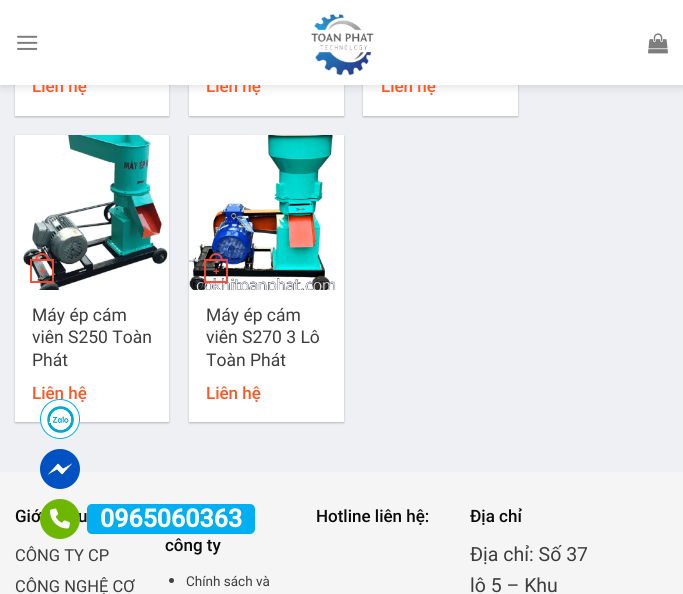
#include <cairo/cairo.h>
#include <math.h>
#include <stddef.h>


static void rounded_rect(cairo_t *cr, double x, double y, double w, double h, double r) {
  cairo_new_sub_path(cr);
  cairo_arc(cr, x + w - r, y + h - r, r, 0, M_PI / 2);
  cairo_arc(cr, x + r, y + h - r, r, M_PI / 2, M_PI);
  cairo_arc(cr, x + r, y + r, r, M_PI, 1.5 * M_PI);
  cairo_arc(cr, x + w - r, y + r, r, 1.5 * M_PI, 2 * M_PI);
  cairo_close_path(cr);
}

static void draw_shadow(cairo_t *cr, double x, double y, double w, double h, double r, double blur, double alpha) {
  cairo_push_group_with_content(cr, CAIRO_CONTENT_ALPHA);
  cairo_set_operator(cr, CAIRO_OPERATOR_SOURCE);
  for (int i = 15; i >= -15 && fmin(w, h) + blur * i / 3 > 0; i -= 2) {
    double e = blur * i / 6;
    cairo_set_source_rgba(cr, 0, 0, 0, alpha * erfc((i - 1) / 8.5) / 2);
    rounded_rect(cr, x - e, y - e, w + 2 * e, h + 2 * e, fmax(0, fmin(r + e + blur * .6, fmin(w, h) / 2 + e)));
    cairo_fill(cr);
  }
  cairo_pattern_t *soft = cairo_pop_group(cr);
  cairo_mask(cr, soft);
  cairo_pattern_destroy(soft);
}

static void draw_image(cairo_t *cr, const char *path, double x, double y, double w, double h) {
  cairo_surface_t *image = cairo_image_surface_create_from_png(path);
  cairo_save(cr);
  cairo_set_source_surface(cr, image, x, y);
  cairo_rectangle(cr, x, y, w, h);
  cairo_fill(cr);
  cairo_restore(cr);
  cairo_surface_destroy(image);
}

static void draw(cairo_t *cr) {
  cairo_set_source_rgb(cr, 239 / 255.0, 240 / 255.0, 243 / 255.0);
  cairo_paint(cr);
  cairo_set_source_rgb(cr, 0, 0, 0);
  draw_shadow(cr, 15, -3, 154, 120, 0, 1, 0.24);
  cairo_set_source_rgb(cr, 1, 1, 1);
  cairo_rectangle(cr, 15, 85, 154, 31);
  cairo_fill(cr);
  cairo_set_source_rgb(cr, 0, 0, 0);
  draw_shadow(cr, 189, -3, 155, 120, 0, 1, 0.24);
  cairo_set_source_rgb(cr, 1, 1, 1);
  cairo_rectangle(cr, 189, 85, 155, 31);
  cairo_fill(cr);
  cairo_set_source_rgb(cr, 0, 0, 0);
  draw_shadow(cr, 363, -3, 155, 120, 0, 1, 0.24);
  cairo_set_source_rgb(cr, 1, 1, 1);
  cairo_rectangle(cr, 363, 85, 155, 31);
  cairo_fill(cr);
  cairo_set_source_rgb(cr, 0, 0, 0);
  draw_shadow(cr, 1, 1, 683, 85, 0, 5, 0.15);
  draw_shadow(cr, 15, 136, 154, 287, 0, 1, 0.24);
  cairo_set_source_rgb(cr, 1, 1, 1);
  cairo_rectangle(cr, 15, 135, 154, 287);
  cairo_fill(cr);
  draw_image(cr, "images/4.png", 22, 135, 146, 155);
  cairo_rectangle(cr, 31, 260, 22, 22);
  cairo_set_source_rgba(cr, 248 / 255.0, 73 / 255.0, 47 / 255.0, 0.95);
  cairo_stroke(cr);
  cairo_set_fill_rule(cr, CAIRO_FILL_RULE_EVEN_ODD);
  cairo_new_path(cr);
  cairo_move_to(cr, 42, 253);
  cairo_curve_to(cr, 46.5, 253, 49, 257, 49, 261);
  cairo_line_to(cr, 35, 261);
  cairo_curve_to(cr, 35, 257, 37.5, 253, 42, 253);
  cairo_close_path(cr);
  cairo_move_to(cr, 42, 255);
  cairo_curve_to(cr, 45.5, 255, 47, 258, 47, 261);
  cairo_line_to(cr, 37, 261);
  cairo_curve_to(cr, 37, 258, 38.5, 255, 42, 255);
  cairo_close_path(cr);
  cairo_fill(cr);
  cairo_set_source_rgb(cr, 0, 0, 0);
  draw_shadow(cr, 189, 136, 155, 287, 0, 1, 0.24);
  cairo_set_source_rgb(cr, 1, 1, 1);
  cairo_rectangle(cr, 189, 135, 155, 287);
  cairo_fill(cr);
  draw_image(cr, "images/5.png", 189, 135, 147, 155);
  cairo_rectangle(cr, 205, 260, 22, 22);
  cairo_set_source_rgba(cr, 248 / 255.0, 73 / 255.0, 47 / 255.0, 0.95);
  cairo_stroke(cr);
  cairo_new_path(cr);
  cairo_move_to(cr, 216, 253);
  cairo_curve_to(cr, 220.5, 253, 223, 257, 223, 261);
  cairo_line_to(cr, 209, 261);
  cairo_curve_to(cr, 209, 257, 211.5, 253, 216, 253);
  cairo_close_path(cr);
  cairo_move_to(cr, 216, 255);
  cairo_curve_to(cr, 219.5, 255, 221, 258, 221, 261);
  cairo_line_to(cr, 211, 261);
  cairo_curve_to(cr, 211, 258, 212.5, 255, 216, 255);
  cairo_close_path(cr);
  cairo_fill(cr);
  cairo_set_source_rgb(cr, 245 / 255.0, 245 / 255.0, 245 / 255.0);
  cairo_rectangle(cr, 0, 472, 683, 122);
  cairo_fill(cr);
  cairo_set_source_rgb(cr, 66 / 255.0, 66 / 255.0, 66 / 255.0);
  cairo_arc(cr, 171.5, 580.5, 2.5, 0, 2 * M_PI);
  cairo_fill(cr);
  cairo_set_source_rgb(cr, 0, 82 / 255.0, 194 / 255.0);
  cairo_arc(cr, 60, 469, 20, 0, 2 * M_PI);
  cairo_fill(cr);
  draw_image(cr, "images/7.png", 47, 463, 26, 12);
  cairo_set_source_rgb(cr, 0, 175 / 255.0, 242 / 255.0);
  rounded_rect(cr, 87, 504, 168, 30, 5);
  cairo_fill(cr);
  cairo_select_font_face(cr, "Roboto Medium", CAIRO_FONT_SLANT_NORMAL, CAIRO_FONT_WEIGHT_NORMAL);
  cairo_set_font_size(cr, 17);
  cairo_set_source_rgb(cr, 1, 86 / 255.0, 34 / 255.0);
  cairo_move_to(cr, 32, 92);
  cairo_show_text(cr, "Liên hệ");
  cairo_move_to(cr, 206, 92);
  cairo_show_text(cr, "Liên hệ");
  cairo_move_to(cr, 381, 92);
  cairo_show_text(cr, "Liên hệ");
  cairo_set_source_rgb(cr, 1, 1, 1);
  cairo_rectangle(cr, 0, 0, 683, 85);
  cairo_fill(cr);
  draw_image(cr, "images/3.png", 648, 33, 20, 21);
  draw_image(cr, "images/1.png", 17, 35, 21, 15);
  draw_image(cr, "images/2.png", 311, 14, 63, 62);
  cairo_select_font_face(cr, "Liberation Sans", CAIRO_FONT_SLANT_NORMAL, CAIRO_FONT_WEIGHT_BOLD);
  cairo_set_font_size(cr, 11);
  cairo_set_source_rgb(cr, 242 / 255.0, 76 / 255.0, 52 / 255.0);
  cairo_move_to(cr, 39, 275);
  cairo_show_text(cr, "+");
  cairo_select_font_face(cr, "Roboto", CAIRO_FONT_SLANT_NORMAL, CAIRO_FONT_WEIGHT_NORMAL);
  cairo_set_font_size(cr, 17.5);
  cairo_set_source_rgb(cr, 61 / 255.0, 61 / 255.0, 61 / 255.0);
  cairo_move_to(cr, 32, 321);
  cairo_show_text(cr, "Máy ép cám");
  cairo_move_to(cr, 32, 343);
  cairo_show_text(cr, "viên S250 Toàn");
  cairo_move_to(cr, 32, 366);
  cairo_show_text(cr, "Phát");
  cairo_select_font_face(cr, "Roboto Medium", CAIRO_FONT_SLANT_NORMAL, CAIRO_FONT_WEIGHT_NORMAL);
  cairo_set_font_size(cr, 17);
  cairo_set_source_rgb(cr, 1, 86 / 255.0, 34 / 255.0);
  cairo_move_to(cr, 32, 399);
  cairo_show_text(cr, "Liên hệ");
  cairo_select_font_face(cr, "Liberation Sans", CAIRO_FONT_SLANT_NORMAL, CAIRO_FONT_WEIGHT_BOLD);
  cairo_set_font_size(cr, 11);
  cairo_set_source_rgb(cr, 237 / 255.0, 71 / 255.0, 46 / 255.0);
  cairo_move_to(cr, 213, 275);
  cairo_show_text(cr, "+");
  cairo_select_font_face(cr, "Roboto", CAIRO_FONT_SLANT_NORMAL, CAIRO_FONT_WEIGHT_NORMAL);
  cairo_set_font_size(cr, 17.5);
  cairo_set_source_rgb(cr, 61 / 255.0, 61 / 255.0, 61 / 255.0);
  cairo_move_to(cr, 206, 321);
  cairo_show_text(cr, "Máy ép cám");
  cairo_move_to(cr, 206, 343);
  cairo_show_text(cr, "viên S270 3 Lô");
  cairo_move_to(cr, 206, 366);
  cairo_show_text(cr, "Toàn Phát");
  cairo_select_font_face(cr, "Roboto Medium", CAIRO_FONT_SLANT_NORMAL, CAIRO_FONT_WEIGHT_NORMAL);
  cairo_set_font_size(cr, 17);
  cairo_set_source_rgb(cr, 1, 86 / 255.0, 34 / 255.0);
  cairo_move_to(cr, 206, 399);
  cairo_show_text(cr, "Liên hệ");
  cairo_set_source_rgb(cr, 10 / 255.0, 10 / 255.0, 10 / 255.0);
  cairo_move_to(cr, 15, 522);
  cairo_show_text(cr, "Giớ");
  cairo_move_to(cr, 78, 522);
  cairo_show_text(cr, "u");
  cairo_select_font_face(cr, "Roboto", CAIRO_FONT_SLANT_NORMAL, CAIRO_FONT_WEIGHT_NORMAL);
  cairo_set_font_size(cr, 16.5);
  cairo_set_source_rgb(cr, 61 / 255.0, 61 / 255.0, 61 / 255.0);
  cairo_move_to(cr, 15, 561);
  cairo_show_text(cr, "CÔNG TY CP");
  cairo_move_to(cr, 15, 592);
  cairo_show_text(cr, "CÔNG NGHỆ CƠ");
  cairo_select_font_face(cr, "Roboto Medium", CAIRO_FONT_SLANT_NORMAL, CAIRO_FONT_WEIGHT_NORMAL);
  cairo_set_font_size(cr, 17);
  cairo_set_source_rgb(cr, 10 / 255.0, 10 / 255.0, 10 / 255.0);
  cairo_move_to(cr, 316, 522);
  cairo_show_text(cr, "Hotline liên hệ:");
  cairo_move_to(cr, 470, 522);
  cairo_show_text(cr, "Địa chỉ");
  cairo_select_font_face(cr, "Roboto", CAIRO_FONT_SLANT_NORMAL, CAIRO_FONT_WEIGHT_NORMAL);
  cairo_set_font_size(cr, 19.5);
  cairo_set_source_rgb(cr, 61 / 255.0, 61 / 255.0, 61 / 255.0);
  cairo_move_to(cr, 470, 561);
  cairo_show_text(cr, "Địa chỉ: Số 37");
  cairo_move_to(cr, 470, 592);
  cairo_show_text(cr, "lô 5 – Khu");
  cairo_select_font_face(cr, "Roboto Medium", CAIRO_FONT_SLANT_NORMAL, CAIRO_FONT_WEIGHT_NORMAL);
  cairo_set_font_size(cr, 17);
  cairo_set_source_rgb(cr, 10 / 255.0, 10 / 255.0, 10 / 255.0);
  cairo_move_to(cr, 165, 551);
  cairo_show_text(cr, "công ty");
  cairo_select_font_face(cr, "Roboto", CAIRO_FONT_SLANT_NORMAL, CAIRO_FONT_WEIGHT_NORMAL);
  cairo_set_font_size(cr, 13.5);
  cairo_set_source_rgb(cr, 61 / 255.0, 61 / 255.0, 61 / 255.0);
  cairo_move_to(cr, 186, 586);
  cairo_show_text(cr, "Chính sách và");
  cairo_set_source_rgb(cr, 1, 1, 1);
  cairo_new_path(cr);
  cairo_arc(cr, 60, 419, 20, 0, 2 * M_PI);
  cairo_fill(cr);
  draw_image(cr, "images/6.png", 47, 406, 27, 27);
  cairo_arc(cr, 60, 419, 19.5, 0, 2 * M_PI);
  cairo_set_source_rgb(cr, 0, 175 / 255.0, 238 / 255.0);
  cairo_set_line_width(cr, 1);
  cairo_stroke(cr);
  cairo_set_source_rgb(cr, 109 / 255.0, 183 / 255.0, 3 / 255.0);
  cairo_arc(cr, 60, 519, 20, 0, 2 * M_PI);
  cairo_fill(cr);
  draw_image(cr, "images/8.png", 50, 508, 20, 21);
  cairo_select_font_face(cr, "Roboto", CAIRO_FONT_SLANT_NORMAL, CAIRO_FONT_WEIGHT_BOLD);
  cairo_set_font_size(cr, 25);
  cairo_set_source_rgb(cr, 1, 1, 1);
  cairo_move_to(cr, 100, 527);
  cairo_show_text(cr, "0965060363");
}

int main(void) {
  cairo_surface_t *surface = cairo_image_surface_create(CAIRO_FORMAT_RGB24, 683, 594);
  cairo_t *cr = cairo_create(surface);
  cairo_font_options_t *options = cairo_font_options_create();
  cairo_font_options_set_hint_metrics(options, CAIRO_HINT_METRICS_OFF);
  cairo_font_options_set_hint_style(options, CAIRO_HINT_STYLE_NONE);
  cairo_set_font_options(cr, options);
  cairo_set_miter_limit(cr, 4);
  draw(cr);
  cairo_surface_write_to_png(surface, "out.png");
  cairo_font_options_destroy(options);
  cairo_destroy(cr);
  cairo_surface_destroy(surface);
  return 0;
}
